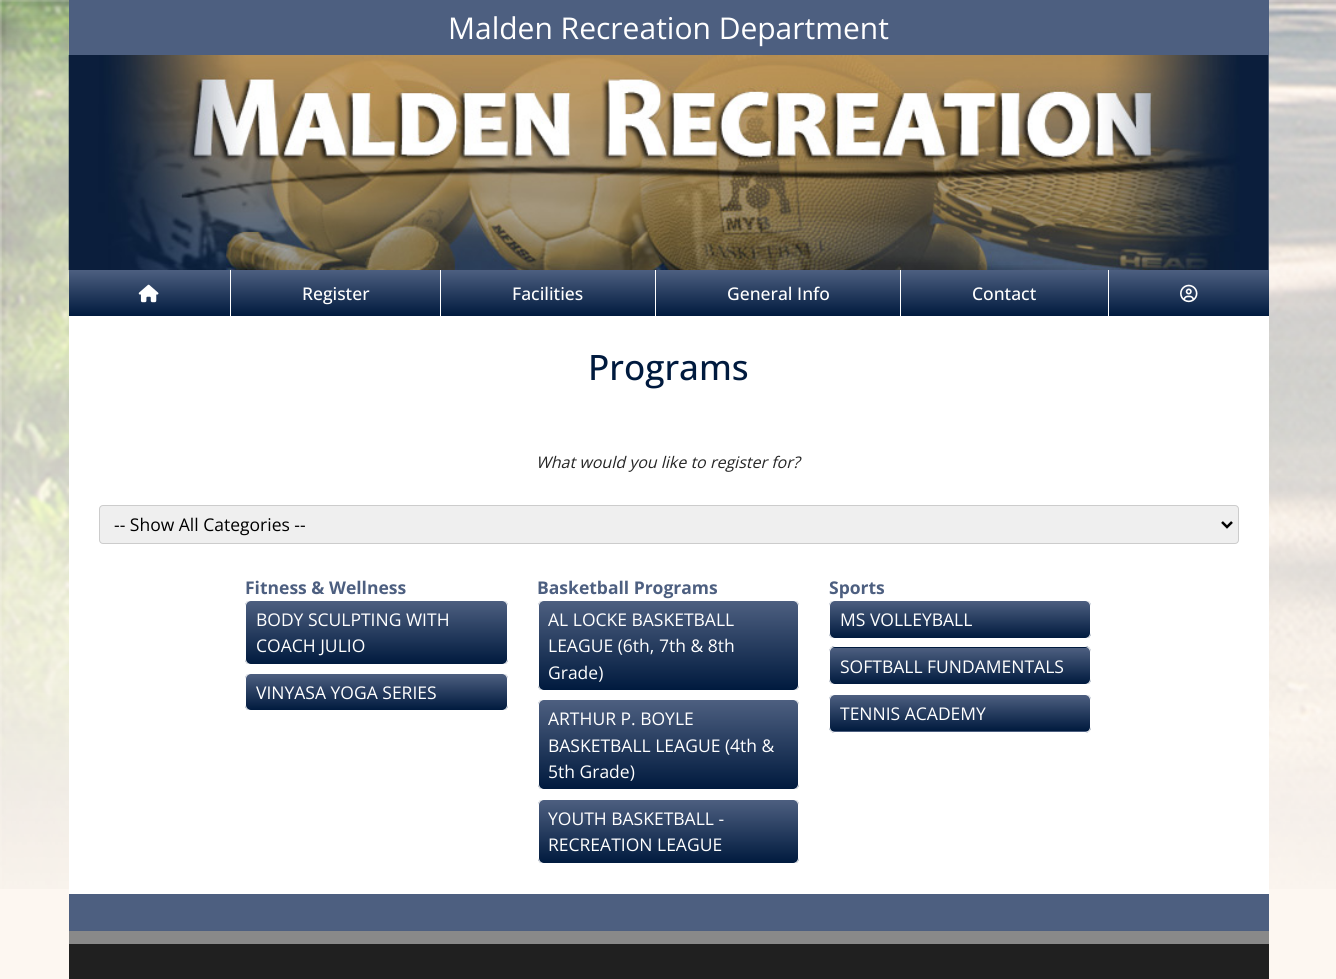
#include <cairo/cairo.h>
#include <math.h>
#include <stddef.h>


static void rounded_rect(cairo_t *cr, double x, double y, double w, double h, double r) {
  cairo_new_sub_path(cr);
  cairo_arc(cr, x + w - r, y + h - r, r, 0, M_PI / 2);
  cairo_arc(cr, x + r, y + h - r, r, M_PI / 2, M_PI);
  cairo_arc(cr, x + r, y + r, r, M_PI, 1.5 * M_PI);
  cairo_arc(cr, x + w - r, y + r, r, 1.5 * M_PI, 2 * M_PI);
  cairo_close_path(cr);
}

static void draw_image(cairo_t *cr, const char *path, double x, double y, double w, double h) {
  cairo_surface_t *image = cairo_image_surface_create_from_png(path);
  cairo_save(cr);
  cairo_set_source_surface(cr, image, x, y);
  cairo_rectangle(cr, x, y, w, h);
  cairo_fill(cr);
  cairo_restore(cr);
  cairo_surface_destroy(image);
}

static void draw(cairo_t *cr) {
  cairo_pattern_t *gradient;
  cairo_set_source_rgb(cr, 253 / 255.0, 247 / 255.0, 241 / 255.0);
  cairo_paint(cr);
  draw_image(cr, "images/1.png", 0, 0, 1336, 889);
  cairo_set_source_rgb(cr, 1, 1, 1);
  cairo_rectangle(cr, 69, 55, 1200, 839);
  cairo_fill(cr);
  cairo_set_source_rgb(cr, 77 / 255.0, 95 / 255.0, 128 / 255.0);
  cairo_rectangle(cr, 69, 0, 1200, 55);
  cairo_fill(cr);
  draw_image(cr, "images/2.png", 68, 55, 1201, 215);
  gradient = cairo_pattern_create_linear(669, 270, 669, 316);
  cairo_pattern_add_color_stop_rgba(gradient, 0, 77 / 255.0, 95 / 255.0, 128 / 255.0, 1);
  cairo_pattern_add_color_stop_rgba(gradient, 1, 0, 26 / 255.0, 62 / 255.0, 1);
  cairo_set_source(cr, gradient);
  cairo_pattern_destroy(gradient);
  cairo_rectangle(cr, 69, 270, 1200, 46);
  cairo_fill(cr);
  cairo_set_source_rgb(cr, 1, 1, 1);
  cairo_rectangle(cr, 230, 270, 1, 46);
  cairo_fill(cr);
  draw_image(cr, "images/3.png", 138, 284, 21, 19);
  cairo_rectangle(cr, 440, 270, 1, 46);
  cairo_fill(cr);
  cairo_rectangle(cr, 655, 270, 1, 46);
  cairo_fill(cr);
  cairo_rectangle(cr, 900, 270, 1, 46);
  cairo_fill(cr);
  cairo_rectangle(cr, 1108, 270, 1, 46);
  cairo_fill(cr);
  draw_image(cr, "images/4.png", 1180, 284, 18, 19);
  cairo_set_source_rgb(cr, 239 / 255.0, 239 / 255.0, 239 / 255.0);
  rounded_rect(cr, 99.5, 505.5, 1139, 38, 3.5);
  cairo_fill_preserve(cr);
  cairo_set_source_rgb(cr, 204 / 255.0, 204 / 255.0, 204 / 255.0);
  cairo_set_line_width(cr, 1);
  cairo_stroke(cr);
  cairo_new_path(cr);
  cairo_move_to(cr, 1222, 522);
  cairo_line_to(cr, 1227, 527);
  cairo_line_to(cr, 1232, 522);
  cairo_set_source_rgb(cr, 0, 0, 0);
  cairo_set_line_width(cr, 2.5);
  cairo_stroke(cr);
  cairo_save(cr);
  rounded_rect(cr, 245, 600, 263, 65, 6);
  cairo_clip(cr);
  gradient = cairo_pattern_create_linear(376, 601, 376, 664);
  cairo_pattern_add_color_stop_rgba(gradient, 0, 77 / 255.0, 95 / 255.0, 128 / 255.0, 1);
  cairo_pattern_add_color_stop_rgba(gradient, 1, 0, 26 / 255.0, 62 / 255.0, 1);
  cairo_set_source(cr, gradient);
  cairo_pattern_destroy(gradient);
  cairo_rectangle(cr, 245, 601, 263, 63);
  cairo_fill(cr);
  cairo_restore(cr);
  rounded_rect(cr, 245.5, 600.5, 262, 64, 5.5);
  cairo_set_source_rgb(cr, 1, 1, 1);
  cairo_set_line_width(cr, 1);
  cairo_stroke(cr);
  cairo_save(cr);
  rounded_rect(cr, 245, 673, 263, 38, 6);
  cairo_clip(cr);
  gradient = cairo_pattern_create_linear(376, 674, 376, 710);
  cairo_pattern_add_color_stop_rgba(gradient, 0, 77 / 255.0, 95 / 255.0, 128 / 255.0, 1);
  cairo_pattern_add_color_stop_rgba(gradient, 1, 0, 26 / 255.0, 62 / 255.0, 1);
  cairo_set_source(cr, gradient);
  cairo_pattern_destroy(gradient);
  cairo_rectangle(cr, 245, 674, 263, 36);
  cairo_fill(cr);
  cairo_restore(cr);
  rounded_rect(cr, 245.5, 673.5, 262, 37, 5.5);
  cairo_stroke(cr);
  cairo_save(cr);
  rounded_rect(cr, 538, 600, 261, 91, 6);
  cairo_clip(cr);
  gradient = cairo_pattern_create_linear(668, 601, 668, 690);
  cairo_pattern_add_color_stop_rgba(gradient, 0, 77 / 255.0, 95 / 255.0, 128 / 255.0, 1);
  cairo_pattern_add_color_stop_rgba(gradient, 1, 0, 26 / 255.0, 62 / 255.0, 1);
  cairo_set_source(cr, gradient);
  cairo_pattern_destroy(gradient);
  cairo_rectangle(cr, 538, 601, 261, 89);
  cairo_fill(cr);
  cairo_restore(cr);
  rounded_rect(cr, 538.5, 600.5, 260, 90, 5.5);
  cairo_stroke(cr);
  cairo_save(cr);
  rounded_rect(cr, 538, 699, 261, 91, 6);
  cairo_clip(cr);
  gradient = cairo_pattern_create_linear(668, 700, 668, 789);
  cairo_pattern_add_color_stop_rgba(gradient, 0, 77 / 255.0, 95 / 255.0, 128 / 255.0, 1);
  cairo_pattern_add_color_stop_rgba(gradient, 1, 0, 26 / 255.0, 62 / 255.0, 1);
  cairo_set_source(cr, gradient);
  cairo_pattern_destroy(gradient);
  cairo_rectangle(cr, 538, 700, 261, 89);
  cairo_fill(cr);
  cairo_restore(cr);
  rounded_rect(cr, 538.5, 699.5, 260, 90, 5.5);
  cairo_stroke(cr);
  cairo_save(cr);
  rounded_rect(cr, 538, 799, 261, 65, 6);
  cairo_clip(cr);
  gradient = cairo_pattern_create_linear(668, 800, 668, 863);
  cairo_pattern_add_color_stop_rgba(gradient, 0, 77 / 255.0, 95 / 255.0, 128 / 255.0, 1);
  cairo_pattern_add_color_stop_rgba(gradient, 1, 0, 26 / 255.0, 62 / 255.0, 1);
  cairo_set_source(cr, gradient);
  cairo_pattern_destroy(gradient);
  cairo_rectangle(cr, 538, 800, 261, 63);
  cairo_fill(cr);
  cairo_restore(cr);
  rounded_rect(cr, 538.5, 799.5, 260, 64, 5.5);
  cairo_stroke(cr);
  cairo_save(cr);
  rounded_rect(cr, 829, 600, 262, 39, 6);
  cairo_clip(cr);
  gradient = cairo_pattern_create_linear(960, 601, 960, 638);
  cairo_pattern_add_color_stop_rgba(gradient, 0, 77 / 255.0, 95 / 255.0, 128 / 255.0, 1);
  cairo_pattern_add_color_stop_rgba(gradient, 1, 0, 26 / 255.0, 62 / 255.0, 1);
  cairo_set_source(cr, gradient);
  cairo_pattern_destroy(gradient);
  cairo_rectangle(cr, 829, 601, 262, 37);
  cairo_fill(cr);
  cairo_restore(cr);
  rounded_rect(cr, 829.5, 600.5, 261, 38, 5.5);
  cairo_stroke(cr);
  cairo_save(cr);
  rounded_rect(cr, 829, 646, 262, 39, 6);
  cairo_clip(cr);
  gradient = cairo_pattern_create_linear(960, 611, 960, 648);
  cairo_pattern_add_color_stop_rgba(gradient, 0, 77 / 255.0, 95 / 255.0, 128 / 255.0, 1);
  cairo_pattern_add_color_stop_rgba(gradient, 1, 0, 26 / 255.0, 62 / 255.0, 1);
  cairo_set_source(cr, gradient);
  cairo_pattern_destroy(gradient);
  cairo_rectangle(cr, 829, 646, 262, 2);
  cairo_fill(cr);
  gradient = cairo_pattern_create_linear(960, 648, 960, 684);
  cairo_pattern_add_color_stop_rgba(gradient, 0, 77 / 255.0, 95 / 255.0, 128 / 255.0, 1);
  cairo_pattern_add_color_stop_rgba(gradient, 1, 0, 26 / 255.0, 62 / 255.0, 1);
  cairo_set_source(cr, gradient);
  cairo_pattern_destroy(gradient);
  cairo_rectangle(cr, 829, 648, 262, 36);
  cairo_fill(cr);
  cairo_restore(cr);
  rounded_rect(cr, 829.5, 646.5, 261, 38, 5.5);
  cairo_stroke(cr);
  cairo_save(cr);
  rounded_rect(cr, 829, 694, 262, 39, 6);
  cairo_clip(cr);
  gradient = cairo_pattern_create_linear(960, 695, 960, 731);
  cairo_pattern_add_color_stop_rgba(gradient, 0, 77 / 255.0, 95 / 255.0, 128 / 255.0, 1);
  cairo_pattern_add_color_stop_rgba(gradient, 1, 0, 26 / 255.0, 62 / 255.0, 1);
  cairo_set_source(cr, gradient);
  cairo_pattern_destroy(gradient);
  cairo_rectangle(cr, 829, 695, 262, 36);
  cairo_fill(cr);
  gradient = cairo_pattern_create_linear(960, 731, 960, 768);
  cairo_pattern_add_color_stop_rgba(gradient, 0, 77 / 255.0, 95 / 255.0, 128 / 255.0, 1);
  cairo_pattern_add_color_stop_rgba(gradient, 1, 0, 26 / 255.0, 62 / 255.0, 1);
  cairo_set_source(cr, gradient);
  cairo_pattern_destroy(gradient);
  cairo_rectangle(cr, 829, 731, 262, 2);
  cairo_fill(cr);
  cairo_restore(cr);
  rounded_rect(cr, 829.5, 694.5, 261, 38, 5.5);
  cairo_stroke(cr);
  cairo_set_source_rgb(cr, 77 / 255.0, 95 / 255.0, 128 / 255.0);
  cairo_rectangle(cr, 69, 894, 1200, 37);
  cairo_fill(cr);
  cairo_set_source_rgb(cr, 32 / 255.0, 32 / 255.0, 32 / 255.0);
  cairo_rectangle(cr, 69, 944, 1200, 35);
  cairo_fill(cr);
  cairo_set_source_rgb(cr, 137 / 255.0, 137 / 255.0, 137 / 255.0);
  cairo_rectangle(cr, 69, 931, 1200, 13);
  cairo_fill(cr);
  cairo_select_font_face(cr, "Open Sans", CAIRO_FONT_SLANT_NORMAL, CAIRO_FONT_WEIGHT_NORMAL);
  cairo_set_font_size(cr, 30);
  cairo_set_source_rgb(cr, 1, 1, 1);
  cairo_move_to(cr, 448, 39);
  cairo_show_text(cr, "Malden Recreation Department");
  cairo_select_font_face(cr, "Open Sans Medium", CAIRO_FONT_SLANT_NORMAL, CAIRO_FONT_WEIGHT_NORMAL);
  cairo_set_font_size(cr, 17.5);
  cairo_move_to(cr, 302, 300);
  cairo_show_text(cr, "Register");
  cairo_move_to(cr, 512, 300);
  cairo_show_text(cr, "Facilities");
  cairo_move_to(cr, 727, 300);
  cairo_show_text(cr, "General Info");
  cairo_move_to(cr, 972, 300);
  cairo_show_text(cr, "Contact");
  cairo_set_font_size(cr, 35);
  cairo_set_source_rgb(cr, 0, 26 / 255.0, 62 / 255.0);
  cairo_move_to(cr, 588, 380);
  cairo_show_text(cr, "Programs");
  cairo_select_font_face(cr, "Open Sans", CAIRO_FONT_SLANT_ITALIC, CAIRO_FONT_WEIGHT_NORMAL);
  cairo_set_font_size(cr, 16);
  cairo_set_source_rgb(cr, 37 / 255.0, 37 / 255.0, 37 / 255.0);
  cairo_move_to(cr, 536, 468);
  cairo_show_text(cr, "What would you like to register for?");
  cairo_select_font_face(cr, "Open Sans", CAIRO_FONT_SLANT_NORMAL, CAIRO_FONT_WEIGHT_NORMAL);
  cairo_set_font_size(cr, 17.5);
  cairo_set_source_rgb(cr, 0, 0, 0);
  cairo_move_to(cr, 114, 531);
  cairo_show_text(cr, "-- Show All Categories --");
  cairo_select_font_face(cr, "Open Sans", CAIRO_FONT_SLANT_NORMAL, CAIRO_FONT_WEIGHT_BOLD);
  cairo_set_source_rgb(cr, 77 / 255.0, 95 / 255.0, 128 / 255.0);
  cairo_move_to(cr, 245, 594);
  cairo_show_text(cr, "Fitness & Wellness");
  cairo_select_font_face(cr, "Open Sans", CAIRO_FONT_SLANT_NORMAL, CAIRO_FONT_WEIGHT_NORMAL);
  cairo_set_source_rgb(cr, 1, 1, 1);
  cairo_move_to(cr, 256, 626);
  cairo_show_text(cr, "BODY SCULPTING WITH");
  cairo_move_to(cr, 256, 652);
  cairo_show_text(cr, "COACH JULIO");
  cairo_move_to(cr, 256, 699);
  cairo_show_text(cr, "VINYASA YOGA SERIES");
  cairo_select_font_face(cr, "Open Sans", CAIRO_FONT_SLANT_NORMAL, CAIRO_FONT_WEIGHT_BOLD);
  cairo_set_source_rgb(cr, 77 / 255.0, 95 / 255.0, 128 / 255.0);
  cairo_move_to(cr, 537, 594);
  cairo_show_text(cr, "Basketball Programs");
  cairo_select_font_face(cr, "Open Sans", CAIRO_FONT_SLANT_NORMAL, CAIRO_FONT_WEIGHT_NORMAL);
  cairo_set_source_rgb(cr, 1, 1, 1);
  cairo_move_to(cr, 548, 626);
  cairo_show_text(cr, "AL LOCKE BASKETBALL");
  cairo_move_to(cr, 548, 652);
  cairo_show_text(cr, "LEAGUE (6th, 7th & 8th");
  cairo_move_to(cr, 548, 679);
  cairo_show_text(cr, "Grade)");
  cairo_move_to(cr, 548, 725);
  cairo_show_text(cr, "ARTHUR P. BOYLE");
  cairo_move_to(cr, 548, 752);
  cairo_show_text(cr, "BASKETBALL LEAGUE (4th &");
  cairo_move_to(cr, 548, 778);
  cairo_show_text(cr, "5th Grade)");
  cairo_move_to(cr, 548, 825);
  cairo_show_text(cr, "YOUTH BASKETBALL -");
  cairo_move_to(cr, 548, 851);
  cairo_show_text(cr, "RECREATION LEAGUE");
  cairo_select_font_face(cr, "Open Sans", CAIRO_FONT_SLANT_NORMAL, CAIRO_FONT_WEIGHT_BOLD);
  cairo_set_source_rgb(cr, 77 / 255.0, 95 / 255.0, 128 / 255.0);
  cairo_move_to(cr, 829, 594);
  cairo_show_text(cr, "Sports");
  cairo_select_font_face(cr, "Open Sans", CAIRO_FONT_SLANT_NORMAL, CAIRO_FONT_WEIGHT_NORMAL);
  cairo_set_source_rgb(cr, 1, 1, 1);
  cairo_move_to(cr, 840, 626);
  cairo_show_text(cr, "MS VOLLEYBALL");
  cairo_move_to(cr, 840, 673);
  cairo_show_text(cr, "SOFTBALL FUNDAMENTALS");
  cairo_move_to(cr, 840, 720);
  cairo_show_text(cr, "TENNIS ACADEMY");
}

int main(void) {
  cairo_surface_t *surface = cairo_image_surface_create(CAIRO_FORMAT_RGB24, 1336, 979);
  cairo_t *cr = cairo_create(surface);
  cairo_font_options_t *options = cairo_font_options_create();
  cairo_font_options_set_hint_metrics(options, CAIRO_HINT_METRICS_OFF);
  cairo_font_options_set_hint_style(options, CAIRO_HINT_STYLE_NONE);
  cairo_set_font_options(cr, options);
  cairo_set_miter_limit(cr, 4);
  draw(cr);
  cairo_surface_write_to_png(surface, "out.png");
  cairo_font_options_destroy(options);
  cairo_destroy(cr);
  cairo_surface_destroy(surface);
  return 0;
}
